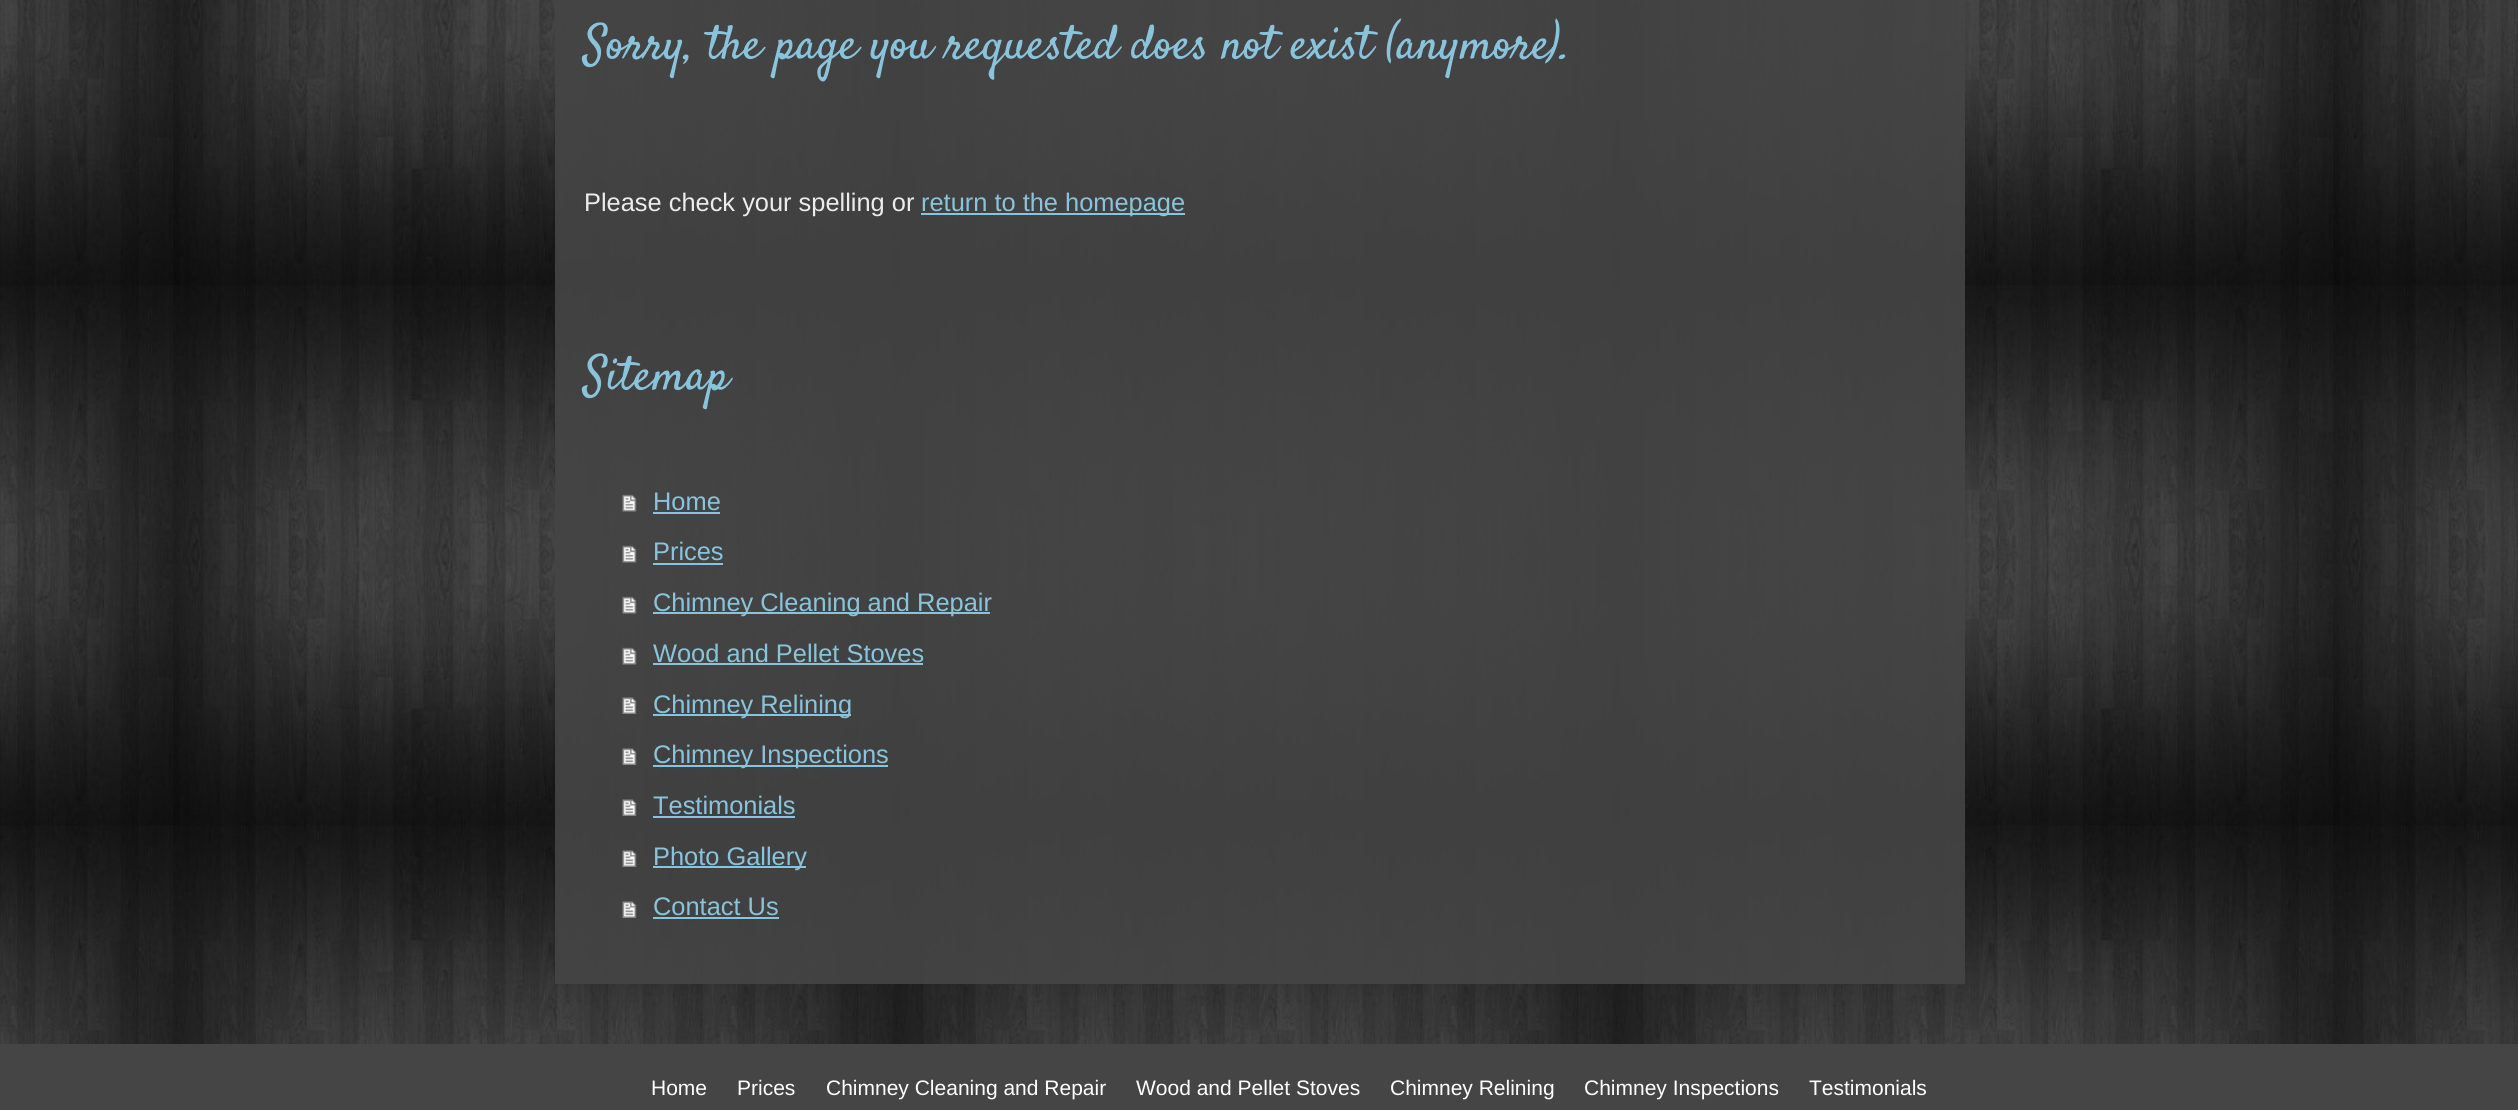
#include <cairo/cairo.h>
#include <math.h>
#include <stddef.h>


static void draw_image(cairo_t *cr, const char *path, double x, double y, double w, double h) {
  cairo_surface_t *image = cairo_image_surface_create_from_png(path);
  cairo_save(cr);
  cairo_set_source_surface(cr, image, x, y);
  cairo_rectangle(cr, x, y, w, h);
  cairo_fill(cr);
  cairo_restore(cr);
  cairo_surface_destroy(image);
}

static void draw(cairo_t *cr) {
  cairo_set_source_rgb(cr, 1, 1, 1);
  cairo_paint(cr);
  draw_image(cr, "images/1.png", 0, 0, 2518, 1044);
  cairo_set_source_rgba(cr, 69 / 255.0, 69 / 255.0, 69 / 255.0, 0.9);
  cairo_rectangle(cr, 555, 0, 1410, 984);
  cairo_fill(cr);
  cairo_set_source_rgb(cr, 138 / 255.0, 196 / 255.0, 220 / 255.0);
  cairo_rectangle(cr, 921, 213, 264, 2);
  cairo_fill(cr);
  draw_image(cr, "images/2.png", 622, 494, 15, 18);
  cairo_rectangle(cr, 653, 512, 67, 2);
  cairo_fill(cr);
  draw_image(cr, "images/3.png", 622, 545, 15, 18);
  cairo_rectangle(cr, 653, 563, 70, 2);
  cairo_fill(cr);
  draw_image(cr, "images/4.png", 622, 596, 15, 18);
  cairo_rectangle(cr, 653, 612, 337, 2);
  cairo_fill(cr);
  draw_image(cr, "images/5.png", 622, 647, 15, 18);
  cairo_rectangle(cr, 653, 663, 270, 2);
  cairo_fill(cr);
  draw_image(cr, "images/6.png", 622, 697, 15, 17);
  cairo_rectangle(cr, 653, 714, 198, 2);
  cairo_fill(cr);
  draw_image(cr, "images/7.png", 622, 748, 15, 17);
  cairo_rectangle(cr, 653, 765, 235, 2);
  cairo_fill(cr);
  draw_image(cr, "images/8.png", 622, 799, 15, 17);
  cairo_rectangle(cr, 653, 816, 142, 2);
  cairo_fill(cr);
  draw_image(cr, "images/9.png", 622, 850, 15, 17);
  cairo_rectangle(cr, 653, 866, 153, 2);
  cairo_fill(cr);
  draw_image(cr, "images/10.png", 622, 901, 15, 17);
  cairo_rectangle(cr, 653, 917, 126, 2);
  cairo_fill(cr);
  cairo_set_source_rgb(cr, 69 / 255.0, 69 / 255.0, 69 / 255.0);
  cairo_rectangle(cr, 0, 1044, 2518, 66);
  cairo_fill(cr);
  cairo_select_font_face(cr, "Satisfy", CAIRO_FONT_SLANT_NORMAL, CAIRO_FONT_WEIGHT_NORMAL);
  cairo_set_font_size(cr, 48);
  cairo_set_source_rgb(cr, 138 / 255.0, 196 / 255.0, 220 / 255.0);
  cairo_move_to(cr, 584, 58);
  cairo_show_text(cr, "Sorry, the page you requested does not exist (anymore).");
  cairo_select_font_face(cr, "Liberation Sans", CAIRO_FONT_SLANT_NORMAL, CAIRO_FONT_WEIGHT_NORMAL);
  cairo_set_font_size(cr, 25.4);
  cairo_set_source_rgb(cr, 236 / 255.0, 236 / 255.0, 236 / 255.0);
  cairo_move_to(cr, 584, 211);
  cairo_show_text(cr, "Please check your spelling or");
  cairo_set_source_rgb(cr, 138 / 255.0, 196 / 255.0, 220 / 255.0);
  cairo_move_to(cr, 921, 211);
  cairo_show_text(cr, "return to the homepage");
  cairo_select_font_face(cr, "Satisfy", CAIRO_FONT_SLANT_NORMAL, CAIRO_FONT_WEIGHT_NORMAL);
  cairo_set_font_size(cr, 48);
  cairo_move_to(cr, 584, 389);
  cairo_show_text(cr, "Sitemap");
  cairo_select_font_face(cr, "Liberation Sans", CAIRO_FONT_SLANT_NORMAL, CAIRO_FONT_WEIGHT_NORMAL);
  cairo_set_font_size(cr, 25.4);
  cairo_move_to(cr, 653, 510);
  cairo_show_text(cr, "Home");
  cairo_move_to(cr, 653, 560);
  cairo_show_text(cr, "Prices");
  cairo_move_to(cr, 653, 611);
  cairo_show_text(cr, "Chimney Cleaning and Repair");
  cairo_move_to(cr, 653, 662);
  cairo_show_text(cr, "Wood and Pellet Stoves");
  cairo_move_to(cr, 653, 713);
  cairo_show_text(cr, "Chimney Relining");
  cairo_move_to(cr, 653, 763);
  cairo_show_text(cr, "Chimney Inspections");
  cairo_move_to(cr, 653, 814);
  cairo_show_text(cr, "Testimonials");
  cairo_move_to(cr, 653, 865);
  cairo_show_text(cr, "Photo Gallery");
  cairo_move_to(cr, 653, 915);
  cairo_show_text(cr, "Contact Us");
  cairo_set_font_size(cr, 21);
  cairo_set_source_rgb(cr, 1, 1, 1);
  cairo_move_to(cr, 651, 1095);
  cairo_show_text(cr, "Home");
  cairo_move_to(cr, 737, 1095);
  cairo_show_text(cr, "Prices");
  cairo_move_to(cr, 826, 1095);
  cairo_show_text(cr, "Chimney Cleaning and Repair");
  cairo_move_to(cr, 1136, 1095);
  cairo_show_text(cr, "Wood and Pellet Stoves");
  cairo_move_to(cr, 1390, 1095);
  cairo_show_text(cr, "Chimney Relining");
  cairo_move_to(cr, 1584, 1095);
  cairo_show_text(cr, "Chimney Inspections");
  cairo_move_to(cr, 1809, 1095);
  cairo_show_text(cr, "Testimonials");
}

int main(void) {
  cairo_surface_t *surface = cairo_image_surface_create(CAIRO_FORMAT_RGB24, 2518, 1110);
  cairo_t *cr = cairo_create(surface);
  cairo_font_options_t *options = cairo_font_options_create();
  cairo_font_options_set_hint_metrics(options, CAIRO_HINT_METRICS_OFF);
  cairo_font_options_set_hint_style(options, CAIRO_HINT_STYLE_NONE);
  cairo_set_font_options(cr, options);
  cairo_set_miter_limit(cr, 4);
  draw(cr);
  cairo_surface_write_to_png(surface, "out.png");
  cairo_font_options_destroy(options);
  cairo_destroy(cr);
  cairo_surface_destroy(surface);
  return 0;
}
